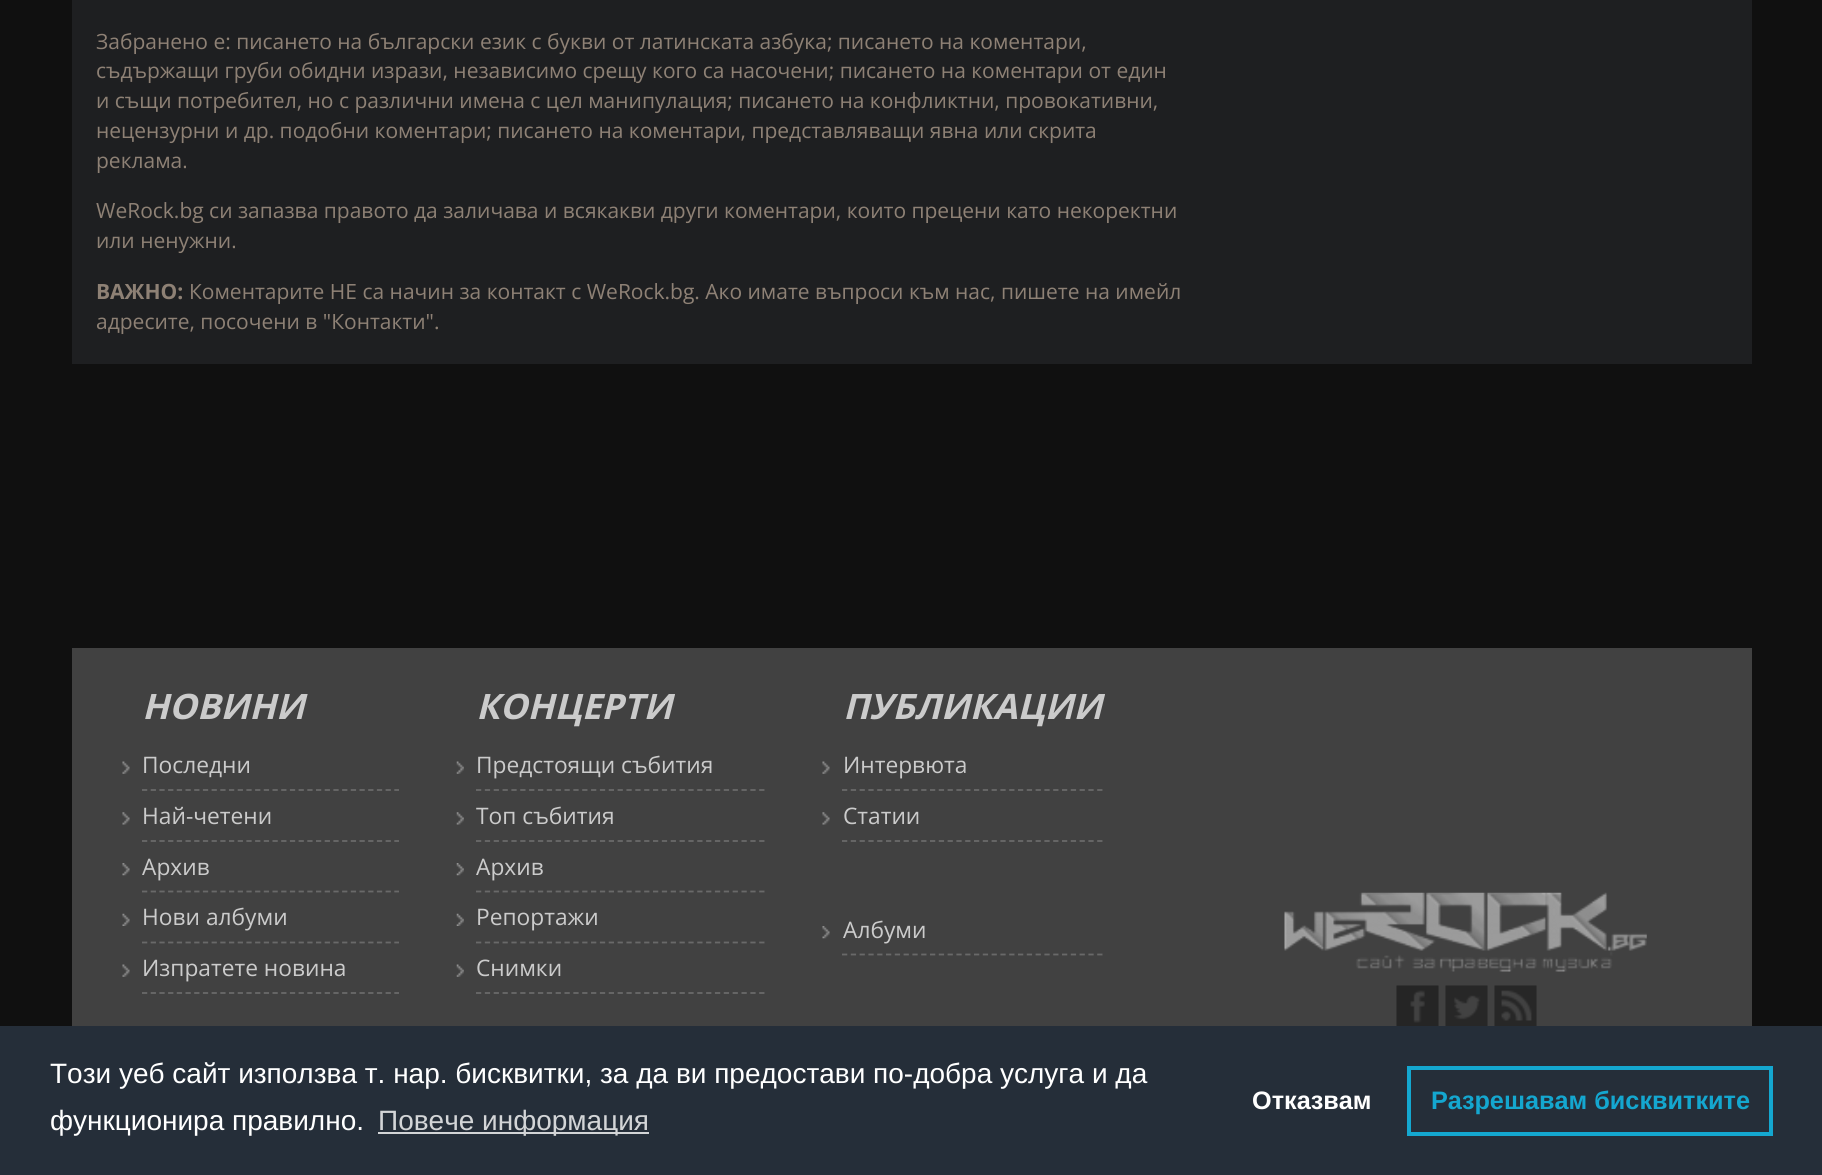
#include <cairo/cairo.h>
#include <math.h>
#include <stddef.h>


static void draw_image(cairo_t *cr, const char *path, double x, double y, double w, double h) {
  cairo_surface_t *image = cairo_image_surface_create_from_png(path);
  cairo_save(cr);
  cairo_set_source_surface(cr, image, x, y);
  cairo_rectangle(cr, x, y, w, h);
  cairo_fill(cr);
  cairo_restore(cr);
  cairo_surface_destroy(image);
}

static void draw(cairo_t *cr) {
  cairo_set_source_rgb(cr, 16 / 255.0, 16 / 255.0, 16 / 255.0);
  cairo_paint(cr);
  cairo_set_source_rgb(cr, 30 / 255.0, 31 / 255.0, 33 / 255.0);
  cairo_rectangle(cr, 72, 0, 1680, 364);
  cairo_fill(cr);
  cairo_set_source_rgb(cr, 65 / 255.0, 65 / 255.0, 65 / 255.0);
  cairo_rectangle(cr, 72, 648, 1680, 378);
  cairo_fill(cr);
  cairo_new_path(cr);
  cairo_move_to(cr, 142, 790);
  cairo_line_to(cr, 399, 790);
  cairo_set_source_rgb(cr, 105 / 255.0, 105 / 255.0, 105 / 255.0);
  cairo_set_line_width(cr, 1.8);
  cairo_set_dash(cr, (double[]){5.25, 3.45}, 2, 0);
  cairo_stroke(cr);
  draw_image(cr, "images/1.png", 122, 761, 8, 13);
  cairo_new_path(cr);
  cairo_move_to(cr, 142, 841);
  cairo_line_to(cr, 399, 841);
  cairo_stroke(cr);
  draw_image(cr, "images/2.png", 122, 812, 8, 13);
  cairo_new_path(cr);
  cairo_move_to(cr, 142, 891.5);
  cairo_line_to(cr, 399, 891.5);
  cairo_stroke(cr);
  draw_image(cr, "images/3.png", 122, 863, 8, 13);
  cairo_new_path(cr);
  cairo_move_to(cr, 142, 942.5);
  cairo_line_to(cr, 399, 942.5);
  cairo_stroke(cr);
  draw_image(cr, "images/4.png", 122, 913, 8, 13);
  cairo_new_path(cr);
  cairo_move_to(cr, 142, 993);
  cairo_line_to(cr, 399, 993);
  cairo_stroke(cr);
  draw_image(cr, "images/1.png", 122, 964, 8, 13);
  cairo_new_path(cr);
  cairo_move_to(cr, 476, 790);
  cairo_line_to(cr, 765, 790);
  cairo_set_dash(cr, (double[]){5.25, 3.6}, 2, 0);
  cairo_stroke(cr);
  draw_image(cr, "images/5.png", 456, 761, 8, 13);
  cairo_new_path(cr);
  cairo_move_to(cr, 476, 841);
  cairo_line_to(cr, 765, 841);
  cairo_stroke(cr);
  draw_image(cr, "images/6.png", 456, 812, 8, 13);
  cairo_new_path(cr);
  cairo_move_to(cr, 476, 891.5);
  cairo_line_to(cr, 765, 891.5);
  cairo_stroke(cr);
  draw_image(cr, "images/7.png", 456, 863, 8, 13);
  cairo_new_path(cr);
  cairo_move_to(cr, 476, 942.5);
  cairo_line_to(cr, 765, 942.5);
  cairo_stroke(cr);
  draw_image(cr, "images/8.png", 456, 913, 8, 13);
  cairo_new_path(cr);
  cairo_move_to(cr, 476, 993);
  cairo_line_to(cr, 765, 993);
  cairo_stroke(cr);
  draw_image(cr, "images/5.png", 456, 964, 8, 13);
  cairo_new_path(cr);
  cairo_move_to(cr, 842, 790);
  cairo_line_to(cr, 1102.5, 790);
  cairo_set_dash(cr, (double[]){5.25, 3.55}, 2, 0);
  cairo_stroke(cr);
  draw_image(cr, "images/1.png", 822, 761, 8, 13);
  cairo_new_path(cr);
  cairo_move_to(cr, 842, 841);
  cairo_line_to(cr, 1102.5, 841);
  cairo_stroke(cr);
  draw_image(cr, "images/2.png", 822, 812, 8, 13);
  cairo_new_path(cr);
  cairo_move_to(cr, 842, 954.5);
  cairo_line_to(cr, 1102.5, 954.5);
  cairo_stroke(cr);
  draw_image(cr, "images/3.png", 822, 926, 8, 13);
  draw_image(cr, "images/9.png", 1284, 892, 363, 80);
  draw_image(cr, "images/10.png", 1396, 985, 43, 41);
  draw_image(cr, "images/11.png", 1445, 985, 43, 41);
  draw_image(cr, "images/12.png", 1494, 985, 43, 41);
  cairo_set_source_rgb(cr, 37 / 255.0, 46 / 255.0, 57 / 255.0);
  cairo_rectangle(cr, 0, 1026, 1822, 149);
  cairo_fill(cr);
  cairo_set_source_rgb(cr, 211 / 255.0, 213 / 255.0, 215 / 255.0);
  cairo_rectangle(cr, 378, 1132, 271, 2);
  cairo_fill(cr);
  cairo_rectangle(cr, 1409, 1068, 362, 66);
  cairo_set_source_rgb(cr, 20 / 255.0, 167 / 255.0, 208 / 255.0);
  cairo_set_line_width(cr, 4);
  cairo_set_dash(cr, NULL, 0, 0);
  cairo_stroke(cr);
  cairo_select_font_face(cr, "Open Sans", CAIRO_FONT_SLANT_NORMAL, CAIRO_FONT_WEIGHT_NORMAL);
  cairo_set_font_size(cr, 21);
  cairo_set_source_rgb(cr, 142 / 255.0, 129 / 255.0, 117 / 255.0);
  cairo_move_to(cr, 96, 49);
  cairo_show_text(cr, "Забранено е: писането на български език с букви от латинската азбука; писането на коментари,");
  cairo_move_to(cr, 96, 78);
  cairo_show_text(cr, "съдържащи груби обидни изрази, независимо срещу кого са насочени; писането на коментари от един");
  cairo_move_to(cr, 96, 108);
  cairo_show_text(cr, "и същи потребител, но с различни имена с цел манипулация; писането на конфликтни, провокативни,");
  cairo_move_to(cr, 96, 138);
  cairo_show_text(cr, "нецензурни и др. подобни коментари; писането на коментари, представляващи явна или скрита");
  cairo_move_to(cr, 96, 168);
  cairo_show_text(cr, "реклама.");
  cairo_move_to(cr, 96, 218);
  cairo_show_text(cr, "WeRock.bg си запазва правото да заличава и всякакви други коментари, които прецени като некоректни");
  cairo_move_to(cr, 96, 248);
  cairo_show_text(cr, "или ненужни.");
  cairo_select_font_face(cr, "Open Sans", CAIRO_FONT_SLANT_NORMAL, CAIRO_FONT_WEIGHT_BOLD);
  cairo_move_to(cr, 96, 299);
  cairo_show_text(cr, "ВАЖНО:");
  cairo_select_font_face(cr, "Open Sans", CAIRO_FONT_SLANT_NORMAL, CAIRO_FONT_WEIGHT_NORMAL);
  cairo_move_to(cr, 189, 299);
  cairo_show_text(cr, "Коментарите НЕ са начин за контакт с WeRock.bg. Ако имате въпроси към нас, пишете на имейл");
  cairo_move_to(cr, 96, 329);
  cairo_show_text(cr, "адресите, посочени в \"Контакти\".");
  cairo_select_font_face(cr, "Open Sans", CAIRO_FONT_SLANT_ITALIC, CAIRO_FONT_WEIGHT_BOLD);
  cairo_set_font_size(cr, 35);
  cairo_set_source_rgb(cr, 203 / 255.0, 203 / 255.0, 203 / 255.0);
  cairo_move_to(cr, 142, 719);
  cairo_show_text(cr, "НОВИНИ");
  cairo_select_font_face(cr, "Open Sans", CAIRO_FONT_SLANT_NORMAL, CAIRO_FONT_WEIGHT_NORMAL);
  cairo_set_font_size(cr, 22.75);
  cairo_move_to(cr, 142, 773);
  cairo_show_text(cr, "Последни");
  cairo_move_to(cr, 142, 824);
  cairo_show_text(cr, "Най-четени");
  cairo_move_to(cr, 142, 875);
  cairo_show_text(cr, "Архив");
  cairo_move_to(cr, 142, 925);
  cairo_show_text(cr, "Нови албуми");
  cairo_move_to(cr, 142, 976);
  cairo_show_text(cr, "Изпратете новина");
  cairo_select_font_face(cr, "Open Sans", CAIRO_FONT_SLANT_ITALIC, CAIRO_FONT_WEIGHT_BOLD);
  cairo_set_font_size(cr, 35);
  cairo_move_to(cr, 476, 719);
  cairo_show_text(cr, "КОНЦЕРТИ");
  cairo_select_font_face(cr, "Open Sans", CAIRO_FONT_SLANT_NORMAL, CAIRO_FONT_WEIGHT_NORMAL);
  cairo_set_font_size(cr, 22.75);
  cairo_move_to(cr, 476, 773);
  cairo_show_text(cr, "Предстоящи събития");
  cairo_move_to(cr, 476, 824);
  cairo_show_text(cr, "Топ събития");
  cairo_move_to(cr, 476, 875);
  cairo_show_text(cr, "Архив");
  cairo_move_to(cr, 476, 925);
  cairo_show_text(cr, "Репортажи");
  cairo_move_to(cr, 476, 976);
  cairo_show_text(cr, "Снимки");
  cairo_select_font_face(cr, "Open Sans", CAIRO_FONT_SLANT_ITALIC, CAIRO_FONT_WEIGHT_BOLD);
  cairo_set_font_size(cr, 35);
  cairo_move_to(cr, 843, 719);
  cairo_show_text(cr, "ПУБЛИКАЦИИ");
  cairo_select_font_face(cr, "Open Sans", CAIRO_FONT_SLANT_NORMAL, CAIRO_FONT_WEIGHT_NORMAL);
  cairo_set_font_size(cr, 22.75);
  cairo_move_to(cr, 843, 773);
  cairo_show_text(cr, "Интервюта");
  cairo_move_to(cr, 843, 824);
  cairo_show_text(cr, "Статии");
  cairo_move_to(cr, 843, 938);
  cairo_show_text(cr, "Албуми");
  cairo_select_font_face(cr, "Liberation Sans", CAIRO_FONT_SLANT_NORMAL, CAIRO_FONT_WEIGHT_NORMAL);
  cairo_set_font_size(cr, 28);
  cairo_set_source_rgb(cr, 1, 1, 1);
  cairo_move_to(cr, 50, 1083);
  cairo_show_text(cr, "Този уеб сайт използва т. нар. бисквитки, за да ви предостави по-добра услуга и да");
  cairo_move_to(cr, 50, 1130);
  cairo_show_text(cr, "функционира правилно.");
  cairo_set_source_rgb(cr, 211 / 255.0, 213 / 255.0, 215 / 255.0);
  cairo_move_to(cr, 378, 1130);
  cairo_show_text(cr, "Повече информация");
  cairo_select_font_face(cr, "Liberation Sans", CAIRO_FONT_SLANT_NORMAL, CAIRO_FONT_WEIGHT_BOLD);
  cairo_set_font_size(cr, 25.25);
  cairo_set_source_rgb(cr, 1, 1, 1);
  cairo_move_to(cr, 1252, 1109);
  cairo_show_text(cr, "Отказвам");
  cairo_set_source_rgb(cr, 20 / 255.0, 167 / 255.0, 208 / 255.0);
  cairo_move_to(cr, 1431, 1109);
  cairo_show_text(cr, "Разрешавам бисквитките");
}

int main(void) {
  cairo_surface_t *surface = cairo_image_surface_create(CAIRO_FORMAT_RGB24, 1822, 1175);
  cairo_t *cr = cairo_create(surface);
  cairo_font_options_t *options = cairo_font_options_create();
  cairo_font_options_set_hint_metrics(options, CAIRO_HINT_METRICS_OFF);
  cairo_font_options_set_hint_style(options, CAIRO_HINT_STYLE_NONE);
  cairo_set_font_options(cr, options);
  cairo_set_miter_limit(cr, 4);
  draw(cr);
  cairo_surface_write_to_png(surface, "out.png");
  cairo_font_options_destroy(options);
  cairo_destroy(cr);
  cairo_surface_destroy(surface);
  return 0;
}
